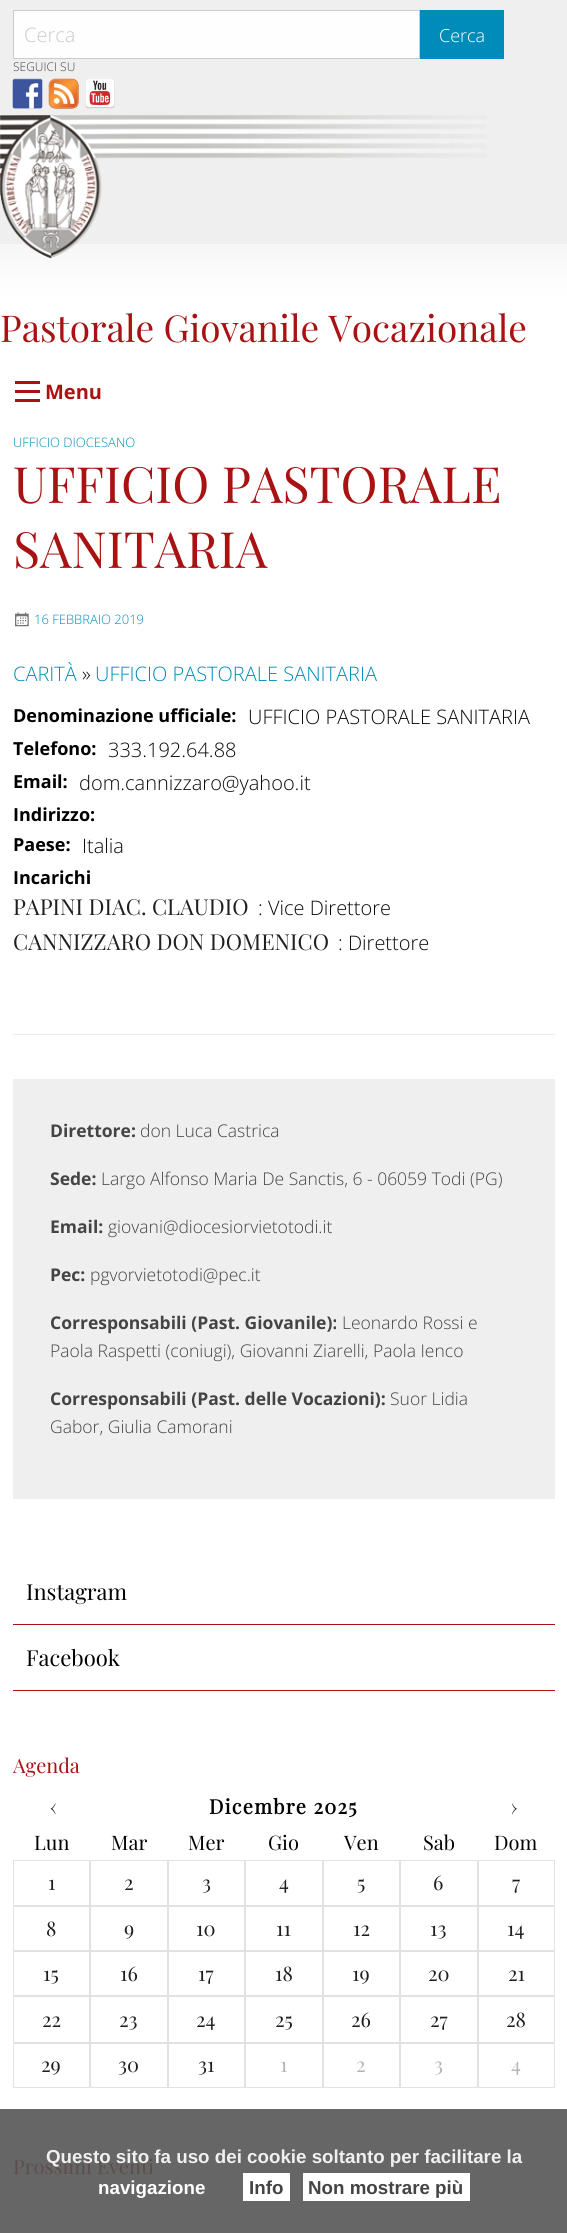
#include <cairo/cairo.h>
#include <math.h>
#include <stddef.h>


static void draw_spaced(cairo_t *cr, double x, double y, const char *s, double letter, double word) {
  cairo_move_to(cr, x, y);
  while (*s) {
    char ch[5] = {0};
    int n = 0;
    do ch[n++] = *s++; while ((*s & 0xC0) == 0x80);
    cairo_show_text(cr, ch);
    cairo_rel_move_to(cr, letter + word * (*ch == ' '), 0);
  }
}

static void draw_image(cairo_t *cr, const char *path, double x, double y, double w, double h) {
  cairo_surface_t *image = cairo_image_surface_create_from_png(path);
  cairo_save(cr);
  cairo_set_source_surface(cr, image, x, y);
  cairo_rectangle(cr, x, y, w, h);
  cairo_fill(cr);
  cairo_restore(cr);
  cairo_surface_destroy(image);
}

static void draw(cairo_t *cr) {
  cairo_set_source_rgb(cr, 239 / 255.0, 239 / 255.0, 239 / 255.0);
  cairo_paint(cr);
  draw_image(cr, "images/1.png", 0, 244, 567, 126);
  cairo_set_source_rgb(cr, 254 / 255.0, 254 / 255.0, 254 / 255.0);
  cairo_rectangle(cr, 13.5, 10.5, 406, 48);
  cairo_fill_preserve(cr);
  cairo_set_source_rgb(cr, 202 / 255.0, 202 / 255.0, 202 / 255.0);
  cairo_set_line_width(cr, 1);
  cairo_stroke(cr);
  cairo_set_source_rgb(cr, 0, 140 / 255.0, 186 / 255.0);
  cairo_rectangle(cr, 420, 10, 84, 49);
  cairo_fill(cr);
  draw_image(cr, "images/2.png", 12, 78, 31, 31);
  draw_image(cr, "images/3.png", 48, 78, 31, 31);
  draw_image(cr, "images/4.png", 85, 79, 30, 30);
  draw_image(cr, "images/5.png", 0, 115, 487, 144);
  cairo_set_source_rgb(cr, 1, 1, 1);
  cairo_rectangle(cr, 0, 370, 567, 1739);
  cairo_fill(cr);
  cairo_set_source_rgb(cr, 169 / 255.0, 18 / 255.0, 18 / 255.0);
  cairo_rectangle(cr, 15, 399, 25, 3);
  cairo_fill(cr);
  cairo_rectangle(cr, 15, 390, 25, 3);
  cairo_fill(cr);
  cairo_rectangle(cr, 15, 381, 25, 3);
  cairo_fill(cr);
  cairo_set_source_rgb(cr, 102 / 255.0, 102 / 255.0, 102 / 255.0);
  cairo_rectangle(cr, 0, 2109, 567, 124);
  cairo_fill(cr);
  cairo_set_source_rgb(cr, 237 / 255.0, 237 / 255.0, 237 / 255.0);
  cairo_rectangle(cr, 13, 1034, 542, 1);
  cairo_fill(cr);
  draw_image(cr, "images/6.png", 15, 612, 14, 15);
  cairo_set_source_rgb(cr, 239 / 255.0, 239 / 255.0, 239 / 255.0);
  cairo_rectangle(cr, 13, 1079, 542, 420);
  cairo_fill(cr);
  cairo_set_source_rgb(cr, 169 / 255.0, 18 / 255.0, 18 / 255.0);
  cairo_rectangle(cr, 13, 1624, 542, 1);
  cairo_fill(cr);
  cairo_rectangle(cr, 13, 1690, 542, 1);
  cairo_fill(cr);
  cairo_rectangle(cr, 13.5, 1860.5, 76, 45);
  cairo_set_source_rgb(cr, 226 / 255.0, 226 / 255.0, 226 / 255.0);
  cairo_stroke(cr);
  cairo_rectangle(cr, 90.5, 1860.5, 77, 45);
  cairo_stroke(cr);
  cairo_rectangle(cr, 168.5, 1860.5, 76, 45);
  cairo_stroke(cr);
  cairo_rectangle(cr, 245.5, 1860.5, 77, 45);
  cairo_stroke(cr);
  cairo_rectangle(cr, 323.5, 1860.5, 76, 45);
  cairo_stroke(cr);
  cairo_rectangle(cr, 400.5, 1860.5, 77, 45);
  cairo_stroke(cr);
  cairo_rectangle(cr, 478.5, 1860.5, 76, 45);
  cairo_stroke(cr);
  cairo_rectangle(cr, 13.5, 1906.5, 76, 44);
  cairo_stroke(cr);
  cairo_rectangle(cr, 90.5, 1906.5, 77, 44);
  cairo_stroke(cr);
  cairo_rectangle(cr, 168.5, 1906.5, 76, 44);
  cairo_stroke(cr);
  cairo_rectangle(cr, 245.5, 1906.5, 77, 44);
  cairo_stroke(cr);
  cairo_rectangle(cr, 323.5, 1906.5, 76, 44);
  cairo_stroke(cr);
  cairo_rectangle(cr, 400.5, 1906.5, 77, 44);
  cairo_stroke(cr);
  cairo_rectangle(cr, 478.5, 1906.5, 76, 44);
  cairo_stroke(cr);
  cairo_rectangle(cr, 13.5, 1951.5, 76, 44);
  cairo_stroke(cr);
  cairo_rectangle(cr, 90.5, 1951.5, 77, 44);
  cairo_stroke(cr);
  cairo_rectangle(cr, 168.5, 1951.5, 76, 44);
  cairo_stroke(cr);
  cairo_rectangle(cr, 245.5, 1951.5, 77, 44);
  cairo_stroke(cr);
  cairo_rectangle(cr, 323.5, 1951.5, 76, 44);
  cairo_stroke(cr);
  cairo_rectangle(cr, 400.5, 1951.5, 77, 44);
  cairo_stroke(cr);
  cairo_rectangle(cr, 478.5, 1951.5, 76, 44);
  cairo_stroke(cr);
  cairo_rectangle(cr, 13.5, 1996.5, 76, 46);
  cairo_stroke(cr);
  cairo_rectangle(cr, 90.5, 1996.5, 77, 46);
  cairo_stroke(cr);
  cairo_rectangle(cr, 168.5, 1996.5, 76, 46);
  cairo_stroke(cr);
  cairo_rectangle(cr, 245.5, 1996.5, 77, 46);
  cairo_stroke(cr);
  cairo_rectangle(cr, 323.5, 1996.5, 76, 46);
  cairo_stroke(cr);
  cairo_rectangle(cr, 400.5, 1996.5, 77, 46);
  cairo_stroke(cr);
  cairo_rectangle(cr, 478.5, 1996.5, 76, 46);
  cairo_stroke(cr);
  cairo_rectangle(cr, 13.5, 2043.5, 76, 44);
  cairo_stroke(cr);
  cairo_rectangle(cr, 90.5, 2043.5, 77, 44);
  cairo_stroke(cr);
  cairo_rectangle(cr, 168.5, 2043.5, 76, 44);
  cairo_stroke(cr);
  cairo_rectangle(cr, 245.5, 2043.5, 77, 44);
  cairo_stroke(cr);
  cairo_rectangle(cr, 323.5, 2043.5, 76, 44);
  cairo_stroke(cr);
  cairo_rectangle(cr, 400.5, 2043.5, 77, 44);
  cairo_stroke(cr);
  cairo_rectangle(cr, 478.5, 2043.5, 76, 44);
  cairo_stroke(cr);
  cairo_set_source_rgb(cr, 1, 1, 1);
  cairo_rectangle(cr, 243, 2173, 47, 28);
  cairo_fill(cr);
  cairo_rectangle(cr, 303, 2173, 167, 28);
  cairo_fill(cr);
  cairo_select_font_face(cr, "Open Sans Light", CAIRO_FONT_SLANT_NORMAL, CAIRO_FONT_WEIGHT_NORMAL);
  cairo_set_font_size(cr, 20);
  cairo_set_source_rgb(cr, 202 / 255.0, 202 / 255.0, 202 / 255.0);
  cairo_move_to(cr, 24, 42);
  cairo_show_text(cr, "Cerca");
  cairo_set_font_size(cr, 18);
  cairo_set_source_rgb(cr, 1, 1, 1);
  cairo_move_to(cr, 439, 42);
  cairo_show_text(cr, "Cerca");
  cairo_set_font_size(cr, 12);
  cairo_set_source_rgb(cr, 68 / 255.0, 68 / 255.0, 68 / 255.0);
  cairo_move_to(cr, 13, 71);
  cairo_show_text(cr, "SEGUICI SU");
  cairo_select_font_face(cr, "Playfair Display", CAIRO_FONT_SLANT_NORMAL, CAIRO_FONT_WEIGHT_NORMAL);
  cairo_set_font_size(cr, 37);
  cairo_set_source_rgb(cr, 169 / 255.0, 18 / 255.0, 18 / 255.0);
  cairo_move_to(cr, 0, 342);
  cairo_show_text(cr, "Pastorale Giovanile Vocazionale");
  cairo_select_font_face(cr, "Open Sans", CAIRO_FONT_SLANT_NORMAL, CAIRO_FONT_WEIGHT_BOLD);
  cairo_set_font_size(cr, 20);
  cairo_move_to(cr, 45, 399);
  cairo_show_text(cr, "Menu");
  cairo_select_font_face(cr, "Open Sans Light", CAIRO_FONT_SLANT_NORMAL, CAIRO_FONT_WEIGHT_NORMAL);
  cairo_set_font_size(cr, 13);
  cairo_set_source_rgb(cr, 0, 140 / 255.0, 186 / 255.0);
  cairo_move_to(cr, 13, 447);
  cairo_show_text(cr, "UFFICIO DIOCESANO");
  cairo_select_font_face(cr, "Playfair Display", CAIRO_FONT_SLANT_NORMAL, CAIRO_FONT_WEIGHT_NORMAL);
  cairo_set_font_size(cr, 50);
  cairo_set_source_rgb(cr, 169 / 255.0, 18 / 255.0, 18 / 255.0);
  cairo_move_to(cr, 13, 503);
  cairo_show_text(cr, "UFFICIO PASTORALE");
  cairo_move_to(cr, 13, 568);
  cairo_show_text(cr, "SANITARIA");
  cairo_select_font_face(cr, "Open Sans Light", CAIRO_FONT_SLANT_NORMAL, CAIRO_FONT_WEIGHT_NORMAL);
  cairo_set_font_size(cr, 13);
  cairo_set_source_rgb(cr, 0, 140 / 255.0, 186 / 255.0);
  cairo_move_to(cr, 34, 624);
  cairo_show_text(cr, "16 FEBBRAIO 2019");
  cairo_set_font_size(cr, 20);
  cairo_move_to(cr, 13, 681);
  cairo_show_text(cr, "CARITÀ");
  cairo_set_source_rgb(cr, 10 / 255.0, 10 / 255.0, 10 / 255.0);
  cairo_move_to(cr, 82, 681);
  cairo_show_text(cr, "»");
  cairo_set_source_rgb(cr, 0, 140 / 255.0, 186 / 255.0);
  cairo_move_to(cr, 95, 681);
  cairo_show_text(cr, "UFFICIO PASTORALE SANITARIA");
  cairo_select_font_face(cr, "Open Sans", CAIRO_FONT_SLANT_NORMAL, CAIRO_FONT_WEIGHT_BOLD);
  cairo_set_font_size(cr, 18);
  cairo_set_source_rgb(cr, 0, 0, 0);
  cairo_move_to(cr, 13, 722);
  cairo_show_text(cr, "Denominazione ufficiale:");
  cairo_select_font_face(cr, "Open Sans Light", CAIRO_FONT_SLANT_NORMAL, CAIRO_FONT_WEIGHT_NORMAL);
  cairo_set_font_size(cr, 20);
  cairo_set_source_rgb(cr, 10 / 255.0, 10 / 255.0, 10 / 255.0);
  cairo_move_to(cr, 248, 724);
  cairo_show_text(cr, "UFFICIO PASTORALE SANITARIA");
  cairo_select_font_face(cr, "Open Sans", CAIRO_FONT_SLANT_NORMAL, CAIRO_FONT_WEIGHT_BOLD);
  cairo_set_font_size(cr, 18);
  cairo_set_source_rgb(cr, 0, 0, 0);
  cairo_move_to(cr, 13, 755);
  cairo_show_text(cr, "Telefono:");
  cairo_select_font_face(cr, "Open Sans Light", CAIRO_FONT_SLANT_NORMAL, CAIRO_FONT_WEIGHT_NORMAL);
  cairo_set_font_size(cr, 20);
  cairo_set_source_rgb(cr, 10 / 255.0, 10 / 255.0, 10 / 255.0);
  cairo_move_to(cr, 108, 757);
  cairo_show_text(cr, "333.192.64.88");
  cairo_select_font_face(cr, "Open Sans", CAIRO_FONT_SLANT_NORMAL, CAIRO_FONT_WEIGHT_BOLD);
  cairo_set_font_size(cr, 18);
  cairo_set_source_rgb(cr, 0, 0, 0);
  cairo_move_to(cr, 13, 788);
  cairo_show_text(cr, "Email:");
  cairo_select_font_face(cr, "Open Sans Light", CAIRO_FONT_SLANT_NORMAL, CAIRO_FONT_WEIGHT_NORMAL);
  cairo_set_font_size(cr, 20);
  cairo_set_source_rgb(cr, 10 / 255.0, 10 / 255.0, 10 / 255.0);
  cairo_move_to(cr, 79, 790);
  cairo_show_text(cr, "dom.cannizzaro@yahoo.it");
  cairo_select_font_face(cr, "Open Sans", CAIRO_FONT_SLANT_NORMAL, CAIRO_FONT_WEIGHT_BOLD);
  cairo_set_font_size(cr, 18);
  cairo_set_source_rgb(cr, 0, 0, 0);
  cairo_move_to(cr, 13, 821);
  cairo_show_text(cr, "Indirizzo:");
  cairo_move_to(cr, 13, 851);
  cairo_show_text(cr, "Paese:");
  cairo_select_font_face(cr, "Open Sans Light", CAIRO_FONT_SLANT_NORMAL, CAIRO_FONT_WEIGHT_NORMAL);
  cairo_set_font_size(cr, 20);
  cairo_set_source_rgb(cr, 10 / 255.0, 10 / 255.0, 10 / 255.0);
  cairo_move_to(cr, 82, 853);
  cairo_show_text(cr, "Italia");
  cairo_select_font_face(cr, "Open Sans", CAIRO_FONT_SLANT_NORMAL, CAIRO_FONT_WEIGHT_BOLD);
  cairo_set_font_size(cr, 18);
  cairo_set_source_rgb(cr, 0, 0, 0);
  cairo_move_to(cr, 13, 884);
  cairo_show_text(cr, "Incarichi");
  cairo_select_font_face(cr, "Playfair Display", CAIRO_FONT_SLANT_NORMAL, CAIRO_FONT_WEIGHT_NORMAL);
  cairo_set_font_size(cr, 22);
  cairo_set_source_rgb(cr, 31 / 255.0, 31 / 255.0, 31 / 255.0);
  cairo_move_to(cr, 13, 915);
  cairo_show_text(cr, "PAPINI DIAC. CLAUDIO");
  cairo_select_font_face(cr, "Open Sans Light", CAIRO_FONT_SLANT_NORMAL, CAIRO_FONT_WEIGHT_NORMAL);
  cairo_set_font_size(cr, 20);
  cairo_set_source_rgb(cr, 10 / 255.0, 10 / 255.0, 10 / 255.0);
  cairo_move_to(cr, 258, 915);
  cairo_show_text(cr, ": Vice Direttore");
  cairo_select_font_face(cr, "Playfair Display", CAIRO_FONT_SLANT_NORMAL, CAIRO_FONT_WEIGHT_NORMAL);
  cairo_set_font_size(cr, 22);
  cairo_set_source_rgb(cr, 31 / 255.0, 31 / 255.0, 31 / 255.0);
  cairo_move_to(cr, 13, 950);
  cairo_show_text(cr, "CANNIZZARO DON DOMENICO");
  cairo_select_font_face(cr, "Open Sans Light", CAIRO_FONT_SLANT_NORMAL, CAIRO_FONT_WEIGHT_NORMAL);
  cairo_set_font_size(cr, 20);
  cairo_set_source_rgb(cr, 10 / 255.0, 10 / 255.0, 10 / 255.0);
  cairo_move_to(cr, 338, 950);
  cairo_show_text(cr, ": Direttore");
  cairo_select_font_face(cr, "Open Sans", CAIRO_FONT_SLANT_NORMAL, CAIRO_FONT_WEIGHT_BOLD);
  cairo_set_font_size(cr, 17.5);
  cairo_set_source_rgb(cr, 68 / 255.0, 68 / 255.0, 68 / 255.0);
  cairo_move_to(cr, 50, 1137);
  cairo_show_text(cr, "Direttore:");
  cairo_select_font_face(cr, "Open Sans Light", CAIRO_FONT_SLANT_NORMAL, CAIRO_FONT_WEIGHT_NORMAL);
  cairo_move_to(cr, 140, 1137);
  cairo_show_text(cr, "don Luca Castrica");
  cairo_select_font_face(cr, "Open Sans", CAIRO_FONT_SLANT_NORMAL, CAIRO_FONT_WEIGHT_BOLD);
  cairo_move_to(cr, 50, 1185);
  cairo_show_text(cr, "Sede:");
  cairo_select_font_face(cr, "Open Sans Light", CAIRO_FONT_SLANT_NORMAL, CAIRO_FONT_WEIGHT_NORMAL);
  cairo_move_to(cr, 101, 1185);
  cairo_show_text(cr, "Largo Alfonso Maria De Sanctis, 6 - 06059 Todi (PG)");
  cairo_select_font_face(cr, "Open Sans", CAIRO_FONT_SLANT_NORMAL, CAIRO_FONT_WEIGHT_BOLD);
  cairo_move_to(cr, 50, 1233);
  cairo_show_text(cr, "Email:");
  cairo_select_font_face(cr, "Open Sans Light", CAIRO_FONT_SLANT_NORMAL, CAIRO_FONT_WEIGHT_NORMAL);
  cairo_move_to(cr, 108, 1233);
  cairo_show_text(cr, "giovani@diocesiorvietotodi.it");
  cairo_select_font_face(cr, "Open Sans", CAIRO_FONT_SLANT_NORMAL, CAIRO_FONT_WEIGHT_BOLD);
  cairo_move_to(cr, 50, 1281);
  cairo_show_text(cr, "Pec:");
  cairo_select_font_face(cr, "Open Sans Light", CAIRO_FONT_SLANT_NORMAL, CAIRO_FONT_WEIGHT_NORMAL);
  cairo_move_to(cr, 90, 1281);
  cairo_show_text(cr, "pgvorvietotodi@pec.it");
  cairo_select_font_face(cr, "Open Sans", CAIRO_FONT_SLANT_NORMAL, CAIRO_FONT_WEIGHT_BOLD);
  cairo_move_to(cr, 50, 1329);
  cairo_show_text(cr, "Corresponsabili (Past. Giovanile):");
  cairo_select_font_face(cr, "Open Sans Light", CAIRO_FONT_SLANT_NORMAL, CAIRO_FONT_WEIGHT_NORMAL);
  cairo_move_to(cr, 342, 1329);
  cairo_show_text(cr, "Leonardo Rossi e");
  cairo_move_to(cr, 50, 1357);
  cairo_show_text(cr, "Paola Raspetti (coniugi), Giovanni Ziarelli, Paola Ienco");
  cairo_select_font_face(cr, "Open Sans", CAIRO_FONT_SLANT_NORMAL, CAIRO_FONT_WEIGHT_BOLD);
  cairo_move_to(cr, 50, 1405);
  cairo_show_text(cr, "Corresponsabili (Past. delle Vocazioni):");
  cairo_select_font_face(cr, "Open Sans Light", CAIRO_FONT_SLANT_NORMAL, CAIRO_FONT_WEIGHT_NORMAL);
  cairo_move_to(cr, 390, 1405);
  cairo_show_text(cr, "Suor Lidia");
  cairo_move_to(cr, 50, 1433);
  cairo_show_text(cr, "Gabor, Giulia Camorani");
  cairo_select_font_face(cr, "Playfair Display", CAIRO_FONT_SLANT_NORMAL, CAIRO_FONT_WEIGHT_NORMAL);
  cairo_set_font_size(cr, 22);
  cairo_set_source_rgb(cr, 0, 0, 0);
  cairo_move_to(cr, 26, 1600);
  cairo_show_text(cr, "Instagram");
  cairo_move_to(cr, 26, 1666);
  cairo_show_text(cr, "Facebook");
  cairo_set_font_size(cr, 20);
  cairo_set_source_rgb(cr, 169 / 255.0, 18 / 255.0, 18 / 255.0);
  cairo_move_to(cr, 13, 1773);
  cairo_show_text(cr, "Agenda");
  cairo_set_source_rgb(cr, 0, 0, 0);
  cairo_move_to(cr, 50, 1814);
  cairo_show_text(cr, "‹");
  cairo_select_font_face(cr, "Playfair Display", CAIRO_FONT_SLANT_NORMAL, CAIRO_FONT_WEIGHT_BOLD);
  draw_spaced(cr, 209, 1814, "Dicembre 2025", 1.25, 0);
  cairo_select_font_face(cr, "Playfair Display", CAIRO_FONT_SLANT_NORMAL, CAIRO_FONT_WEIGHT_NORMAL);
  cairo_move_to(cr, 511, 1814);
  cairo_show_text(cr, "›");
  cairo_move_to(cr, 34, 1850);
  cairo_show_text(cr, "Lun");
  cairo_move_to(cr, 111, 1850);
  cairo_show_text(cr, "Mar");
  cairo_move_to(cr, 188, 1850);
  cairo_show_text(cr, "Mer");
  cairo_move_to(cr, 268, 1850);
  cairo_show_text(cr, "Gio");
  cairo_move_to(cr, 344, 1850);
  cairo_show_text(cr, "Ven");
  cairo_move_to(cr, 423, 1850);
  cairo_show_text(cr, "Sab");
  cairo_move_to(cr, 494, 1850);
  cairo_show_text(cr, "Dom");
  cairo_set_source_rgb(cr, 31 / 255.0, 31 / 255.0, 31 / 255.0);
  cairo_move_to(cr, 48, 1890);
  cairo_show_text(cr, "1");
  cairo_move_to(cr, 124, 1890);
  cairo_show_text(cr, "2");
  cairo_move_to(cr, 202, 1890);
  cairo_show_text(cr, "3");
  cairo_move_to(cr, 279, 1890);
  cairo_show_text(cr, "4");
  cairo_move_to(cr, 357, 1890);
  cairo_show_text(cr, "5");
  cairo_move_to(cr, 433, 1890);
  cairo_show_text(cr, "6");
  cairo_move_to(cr, 512, 1890);
  cairo_show_text(cr, "7");
  cairo_move_to(cr, 46, 1936);
  cairo_show_text(cr, "8");
  cairo_move_to(cr, 124, 1936);
  cairo_show_text(cr, "9");
  cairo_move_to(cr, 196, 1936);
  cairo_show_text(cr, "10");
  cairo_move_to(cr, 276, 1936);
  cairo_show_text(cr, "11");
  cairo_move_to(cr, 353, 1936);
  cairo_show_text(cr, "12");
  cairo_move_to(cr, 430, 1936);
  cairo_show_text(cr, "13");
  cairo_move_to(cr, 507, 1936);
  cairo_show_text(cr, "14");
  cairo_move_to(cr, 43, 1981);
  cairo_show_text(cr, "15");
  cairo_move_to(cr, 120, 1981);
  cairo_show_text(cr, "16");
  cairo_move_to(cr, 198, 1981);
  cairo_show_text(cr, "17");
  cairo_move_to(cr, 275, 1981);
  cairo_show_text(cr, "18");
  cairo_move_to(cr, 352, 1981);
  cairo_show_text(cr, "19");
  cairo_move_to(cr, 428, 1981);
  cairo_show_text(cr, "20");
  cairo_move_to(cr, 508, 1981);
  cairo_show_text(cr, "21");
  cairo_move_to(cr, 42, 2027);
  cairo_show_text(cr, "22");
  cairo_move_to(cr, 119, 2027);
  cairo_show_text(cr, "23");
  cairo_move_to(cr, 196, 2027);
  cairo_show_text(cr, "24");
  cairo_move_to(cr, 275, 2027);
  cairo_show_text(cr, "25");
  cairo_move_to(cr, 351, 2027);
  cairo_show_text(cr, "26");
  cairo_move_to(cr, 430, 2027);
  cairo_show_text(cr, "27");
  cairo_move_to(cr, 506, 2027);
  cairo_show_text(cr, "28");
  cairo_move_to(cr, 41, 2072);
  cairo_show_text(cr, "29");
  cairo_move_to(cr, 118, 2072);
  cairo_show_text(cr, "30");
  cairo_move_to(cr, 198, 2072);
  cairo_show_text(cr, "31");
  cairo_set_source_rgb(cr, 179 / 255.0, 179 / 255.0, 179 / 255.0);
  cairo_move_to(cr, 280, 2072);
  cairo_show_text(cr, "1");
  cairo_move_to(cr, 356, 2072);
  cairo_show_text(cr, "2");
  cairo_move_to(cr, 434, 2072);
  cairo_show_text(cr, "3");
  cairo_move_to(cr, 511, 2072);
  cairo_show_text(cr, "4");
  cairo_set_source_rgb(cr, 93 / 255.0, 78 / 255.0, 78 / 255.0);
  cairo_move_to(cr, 13, 2174);
  cairo_show_text(cr, "Prossimi Eventi");
  cairo_select_font_face(cr, "Liberation Sans", CAIRO_FONT_SLANT_NORMAL, CAIRO_FONT_WEIGHT_BOLD);
  cairo_set_font_size(cr, 18.75);
  cairo_set_source_rgb(cr, 240 / 255.0, 240 / 255.0, 240 / 255.0);
  cairo_move_to(cr, 46, 2163);
  cairo_show_text(cr, "Questo sito fa uso dei cookie soltanto per facilitare la");
  cairo_set_source_rgb(cr, 1, 1, 1);
  cairo_move_to(cr, 98, 2194);
  cairo_show_text(cr, "navigazione");
  cairo_set_source_rgb(cr, 68 / 255.0, 68 / 255.0, 68 / 255.0);
  cairo_move_to(cr, 249, 2194);
  cairo_show_text(cr, "Info");
  cairo_move_to(cr, 308, 2194);
  cairo_show_text(cr, "Non mostrare più");
}

int main(void) {
  cairo_surface_t *surface = cairo_image_surface_create(CAIRO_FORMAT_RGB24, 567, 2233);
  cairo_t *cr = cairo_create(surface);
  cairo_font_options_t *options = cairo_font_options_create();
  cairo_font_options_set_hint_metrics(options, CAIRO_HINT_METRICS_OFF);
  cairo_font_options_set_hint_style(options, CAIRO_HINT_STYLE_NONE);
  cairo_set_font_options(cr, options);
  cairo_set_miter_limit(cr, 4);
  draw(cr);
  cairo_surface_write_to_png(surface, "out.png");
  cairo_font_options_destroy(options);
  cairo_destroy(cr);
  cairo_surface_destroy(surface);
  return 0;
}
